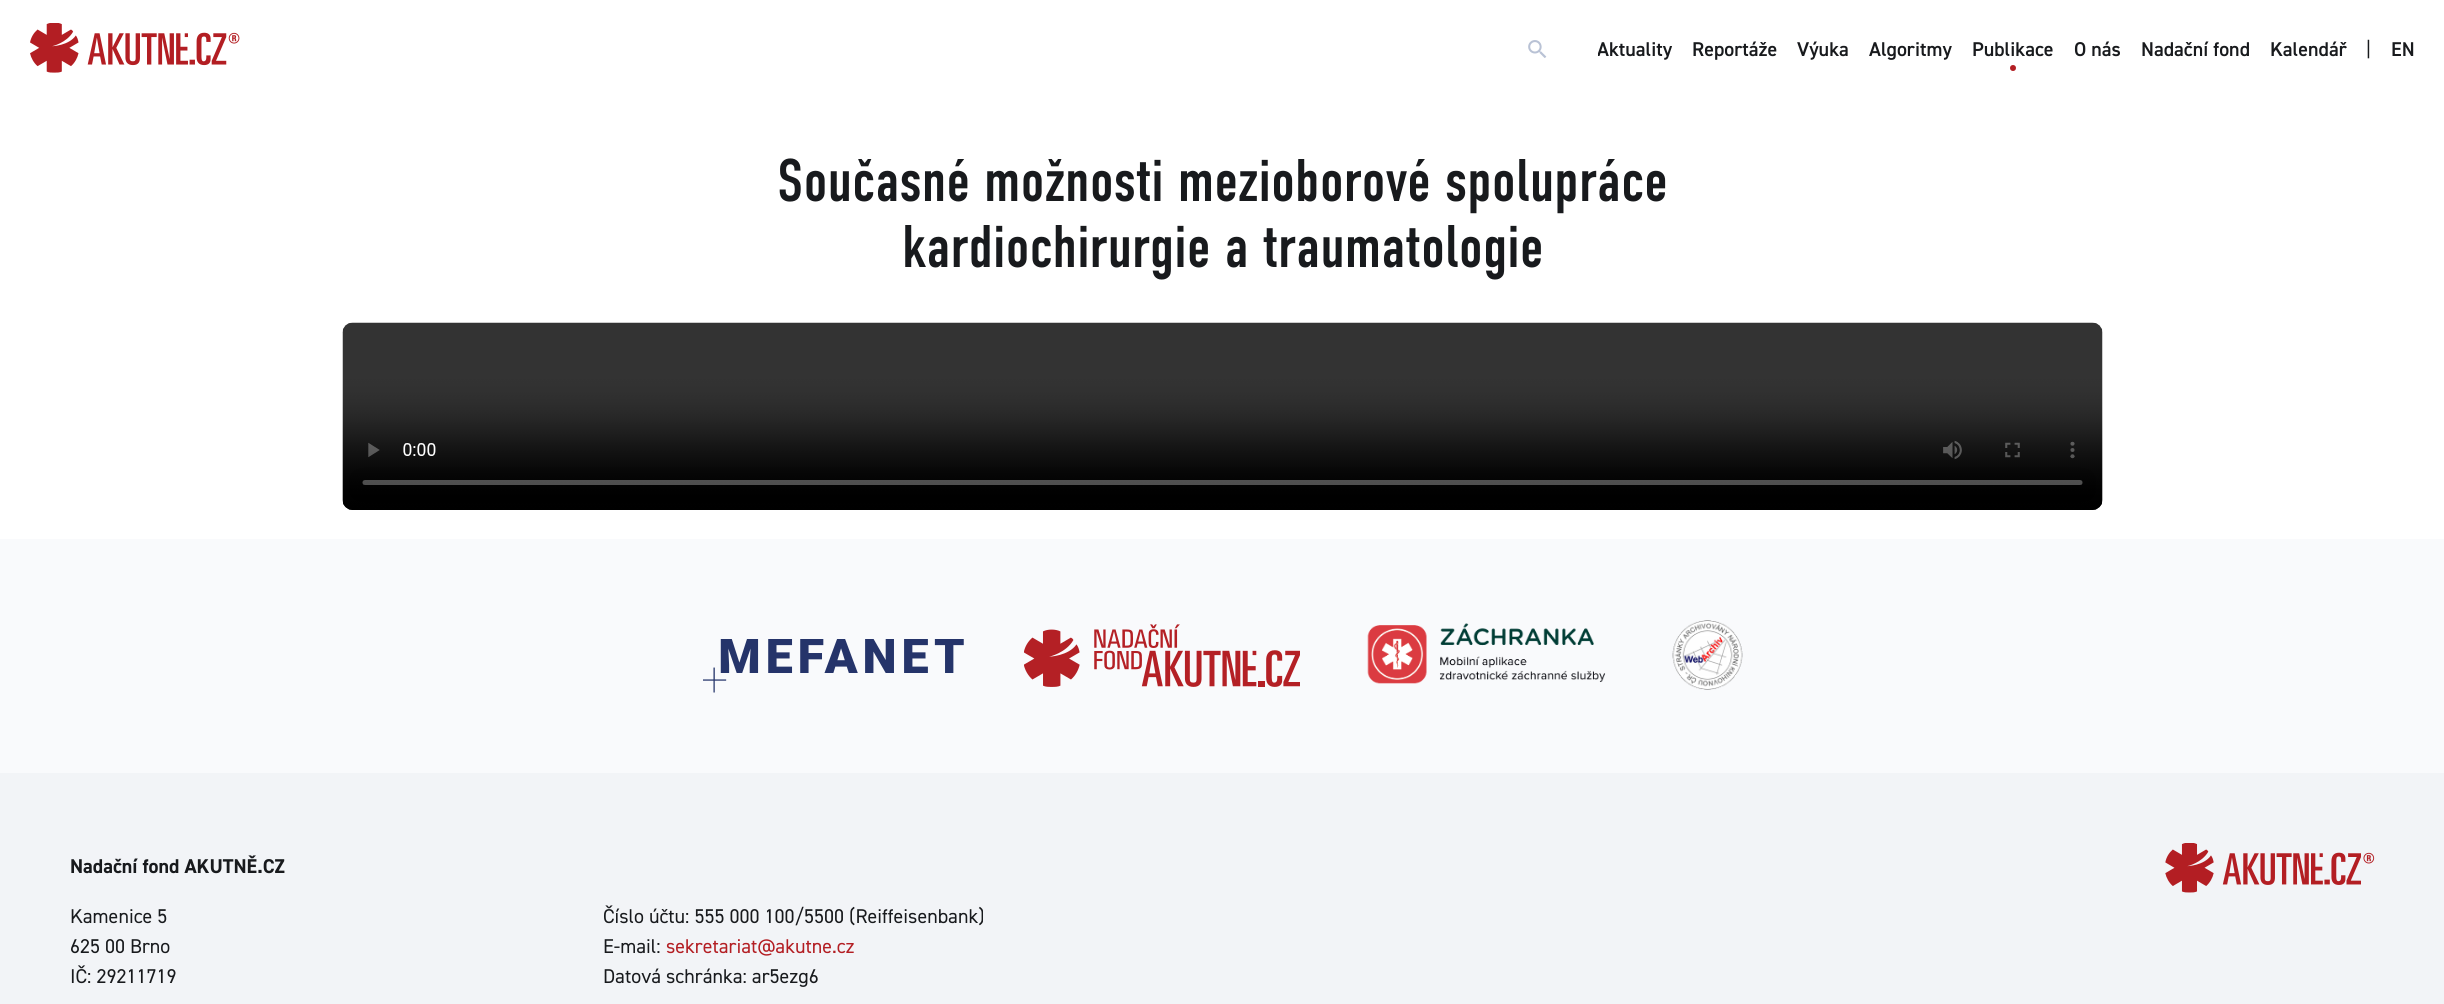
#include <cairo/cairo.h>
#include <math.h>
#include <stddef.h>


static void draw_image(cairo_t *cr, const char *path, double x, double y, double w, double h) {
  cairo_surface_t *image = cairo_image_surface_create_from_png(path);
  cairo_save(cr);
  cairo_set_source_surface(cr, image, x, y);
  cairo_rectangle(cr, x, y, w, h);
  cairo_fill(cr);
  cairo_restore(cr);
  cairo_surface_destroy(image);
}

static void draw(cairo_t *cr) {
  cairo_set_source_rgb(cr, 1, 1, 1);
  cairo_paint(cr);
  draw_image(cr, "images/1.png", 30, 23, 210, 50);
  draw_image(cr, "images/2.png", 1528, 40, 19, 18);
  cairo_set_source_rgb(cr, 179 / 255.0, 30 / 255.0, 35 / 255.0);
  cairo_arc(cr, 2013, 68, 3, 0, 2 * M_PI);
  cairo_fill(cr);
  draw_image(cr, "images/3.png", 342, 322, 1761, 188);
  cairo_set_source_rgb(cr, 249 / 255.0, 250 / 255.0, 252 / 255.0);
  cairo_rectangle(cr, 0, 539, 2444, 234);
  cairo_fill(cr);
  draw_image(cr, "images/4.png", 703, 639, 261, 54);
  draw_image(cr, "images/5.png", 1024, 624, 276, 63);
  draw_image(cr, "images/6.png", 1367, 623, 239, 61);
  draw_image(cr, "images/7.png", 1672, 620, 71, 70);
  cairo_set_source_rgb(cr, 242 / 255.0, 244 / 255.0, 247 / 255.0);
  cairo_rectangle(cr, 0, 773, 2444, 231);
  cairo_fill(cr);
  draw_image(cr, "images/8.png", 2165, 843, 210, 50);
  cairo_save(cr);
  cairo_rectangle(cr, 1598, 0, 817, 100);
  cairo_clip(cr);
  cairo_select_font_face(cr, "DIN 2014 SemiBold", CAIRO_FONT_SLANT_NORMAL, CAIRO_FONT_WEIGHT_NORMAL);
  cairo_set_font_size(cr, 20);
  cairo_set_source_rgb(cr, 24 / 255.0, 26 / 255.0, 29 / 255.0);
  cairo_move_to(cr, 1597, 56);
  cairo_show_text(cr, "Aktuality");
  cairo_restore(cr);
  cairo_select_font_face(cr, "DIN 2014 SemiBold", CAIRO_FONT_SLANT_NORMAL, CAIRO_FONT_WEIGHT_NORMAL);
  cairo_set_font_size(cr, 20);
  cairo_set_source_rgb(cr, 24 / 255.0, 26 / 255.0, 29 / 255.0);
  cairo_move_to(cr, 1692, 56);
  cairo_show_text(cr, "Reportáže");
  cairo_move_to(cr, 1797, 56);
  cairo_show_text(cr, "Výuka");
  cairo_move_to(cr, 1869, 56);
  cairo_show_text(cr, "Algoritmy");
  cairo_move_to(cr, 1972, 56);
  cairo_show_text(cr, "Publikace");
  cairo_move_to(cr, 2074, 56);
  cairo_show_text(cr, "O nás");
  cairo_move_to(cr, 2141, 56);
  cairo_show_text(cr, "Nadační fond");
  cairo_move_to(cr, 2270, 56);
  cairo_show_text(cr, "Kalendář");
  cairo_select_font_face(cr, "DIN 2014", CAIRO_FONT_SLANT_NORMAL, CAIRO_FONT_WEIGHT_NORMAL);
  cairo_move_to(cr, 2366, 56);
  cairo_show_text(cr, "|");
  cairo_select_font_face(cr, "DIN 2014 SemiBold", CAIRO_FONT_SLANT_NORMAL, CAIRO_FONT_WEIGHT_NORMAL);
  cairo_move_to(cr, 2391, 56);
  cairo_show_text(cr, "EN");
  cairo_select_font_face(cr, "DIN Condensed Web", CAIRO_FONT_SLANT_NORMAL, CAIRO_FONT_WEIGHT_NORMAL);
  cairo_set_font_size(cr, 60);
  cairo_move_to(cr, 777, 201);
  cairo_show_text(cr, "Současné možnosti mezioborové spolupráce");
  cairo_move_to(cr, 902, 267);
  cairo_show_text(cr, "kardiochirurgie a traumatologie");
  cairo_select_font_face(cr, "DIN 2014", CAIRO_FONT_SLANT_NORMAL, CAIRO_FONT_WEIGHT_BOLD);
  cairo_set_font_size(cr, 20);
  cairo_move_to(cr, 70, 873);
  cairo_show_text(cr, "Nadační fond AKUTNĚ.CZ");
  cairo_select_font_face(cr, "DIN 2014", CAIRO_FONT_SLANT_NORMAL, CAIRO_FONT_WEIGHT_NORMAL);
  cairo_move_to(cr, 70, 923);
  cairo_show_text(cr, "Kamenice 5");
  cairo_move_to(cr, 70, 953);
  cairo_show_text(cr, "625 00 Brno");
  cairo_move_to(cr, 70, 983);
  cairo_show_text(cr, "IČ: 29211719");
  cairo_move_to(cr, 603, 923);
  cairo_show_text(cr, "Číslo účtu: 555 000 100/5500 (Reiffeisenbank)");
  cairo_move_to(cr, 603, 953);
  cairo_show_text(cr, "E-mail:");
  cairo_set_source_rgb(cr, 179 / 255.0, 30 / 255.0, 35 / 255.0);
  cairo_move_to(cr, 666, 953);
  cairo_show_text(cr, "sekretariat@akutne.cz");
  cairo_set_source_rgb(cr, 24 / 255.0, 26 / 255.0, 29 / 255.0);
  cairo_move_to(cr, 603, 983);
  cairo_show_text(cr, "Datová schránka: ar5ezg6");
}

int main(void) {
  cairo_surface_t *surface = cairo_image_surface_create(CAIRO_FORMAT_RGB24, 2444, 1004);
  cairo_t *cr = cairo_create(surface);
  cairo_font_options_t *options = cairo_font_options_create();
  cairo_font_options_set_hint_metrics(options, CAIRO_HINT_METRICS_OFF);
  cairo_font_options_set_hint_style(options, CAIRO_HINT_STYLE_NONE);
  cairo_set_font_options(cr, options);
  cairo_set_miter_limit(cr, 4);
  draw(cr);
  cairo_surface_write_to_png(surface, "out.png");
  cairo_font_options_destroy(options);
  cairo_destroy(cr);
  cairo_surface_destroy(surface);
  return 0;
}
